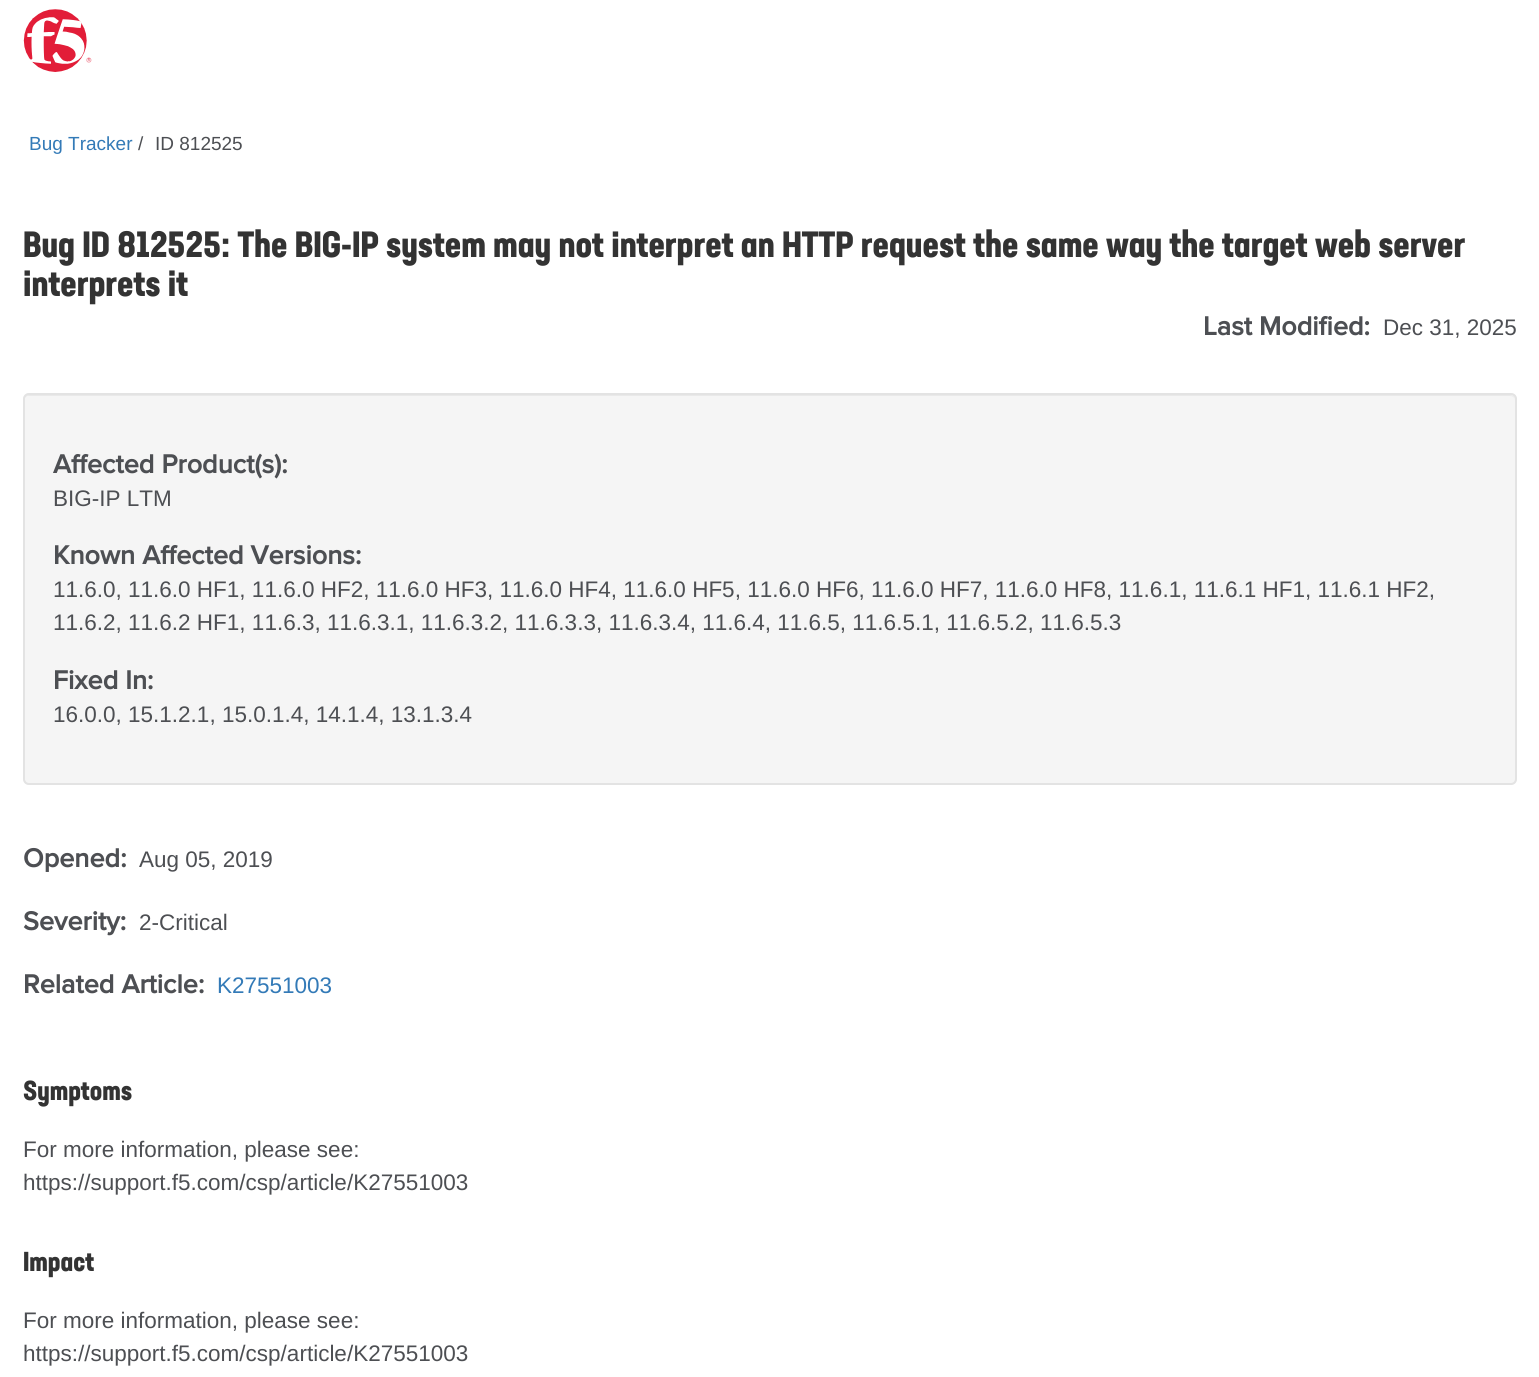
#include <cairo/cairo.h>
#include <math.h>
#include <stddef.h>


static void rounded_rect(cairo_t *cr, double x, double y, double w, double h, double r) {
  cairo_new_sub_path(cr);
  cairo_arc(cr, x + w - r, y + h - r, r, 0, M_PI / 2);
  cairo_arc(cr, x + r, y + h - r, r, M_PI / 2, M_PI);
  cairo_arc(cr, x + r, y + r, r, M_PI, 1.5 * M_PI);
  cairo_arc(cr, x + w - r, y + r, r, 1.5 * M_PI, 2 * M_PI);
  cairo_close_path(cr);
}

static void draw_image(cairo_t *cr, const char *path, double x, double y, double w, double h) {
  cairo_surface_t *image = cairo_image_surface_create_from_png(path);
  cairo_save(cr);
  cairo_set_source_surface(cr, image, x, y);
  cairo_rectangle(cr, x, y, w, h);
  cairo_fill(cr);
  cairo_restore(cr);
  cairo_surface_destroy(image);
}

static void draw(cairo_t *cr) {
  cairo_set_source_rgb(cr, 1, 1, 1);
  cairo_paint(cr);
  draw_image(cr, "images/1.png", 23, 9, 69, 63);
  cairo_set_source_rgb(cr, 245 / 255.0, 245 / 255.0, 245 / 255.0);
  rounded_rect(cr, 23, 393, 1494, 392, 6);
  cairo_fill(cr);
  cairo_set_source_rgb(cr, 233 / 255.0, 233 / 255.0, 233 / 255.0);
  cairo_new_path(cr);
  cairo_move_to(cr, 28, 396);
  cairo_line_to(cr, 1510, 396);
  cairo_curve_to(cr, 1513, 396, 1515, 398, 1515, 400);
  cairo_curve_to(cr, 1515, 397, 1513, 395, 1510, 395);
  cairo_line_to(cr, 29, 395);
  cairo_curve_to(cr, 26, 395, 24, 397, 24, 400);
  cairo_curve_to(cr, 24, 398, 26, 396, 28, 396);
  cairo_close_path(cr);
  cairo_fill(cr);
  rounded_rect(cr, 24, 394, 1492, 390, 5);
  cairo_set_source_rgb(cr, 227 / 255.0, 227 / 255.0, 227 / 255.0);
  cairo_stroke(cr);
  cairo_select_font_face(cr, "Liberation Sans", CAIRO_FONT_SLANT_NORMAL, CAIRO_FONT_WEIGHT_NORMAL);
  cairo_set_font_size(cr, 19);
  cairo_set_source_rgb(cr, 51 / 255.0, 122 / 255.0, 183 / 255.0);
  cairo_move_to(cr, 29, 150);
  cairo_show_text(cr, "Bug Tracker");
  cairo_set_source_rgb(cr, 77 / 255.0, 79 / 255.0, 83 / 255.0);
  cairo_move_to(cr, 138, 150);
  cairo_show_text(cr, "/");
  cairo_move_to(cr, 155, 150);
  cairo_show_text(cr, "ID 812525");
  cairo_select_font_face(cr, "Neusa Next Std", CAIRO_FONT_SLANT_NORMAL, CAIRO_FONT_WEIGHT_BOLD);
  cairo_set_font_size(cr, 36);
  cairo_set_source_rgb(cr, 51 / 255.0, 51 / 255.0, 51 / 255.0);
  cairo_move_to(cr, 23, 257);
  cairo_show_text(cr, "Bug ID 812525: The BIG-IP system may not interpret an HTTP request the same way the target web server");
  cairo_move_to(cr, 23, 296);
  cairo_show_text(cr, "interprets it");
  cairo_select_font_face(cr, "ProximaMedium", CAIRO_FONT_SLANT_NORMAL, CAIRO_FONT_WEIGHT_BOLD);
  cairo_set_font_size(cr, 27);
  cairo_set_source_rgb(cr, 77 / 255.0, 79 / 255.0, 83 / 255.0);
  cairo_move_to(cr, 1203, 335);
  cairo_show_text(cr, "Last Modified:");
  cairo_select_font_face(cr, "Liberation Sans", CAIRO_FONT_SLANT_NORMAL, CAIRO_FONT_WEIGHT_NORMAL);
  cairo_set_font_size(cr, 22.5);
  cairo_move_to(cr, 1383, 335);
  cairo_show_text(cr, "Dec 31, 2025");
  cairo_select_font_face(cr, "ProximaMedium", CAIRO_FONT_SLANT_NORMAL, CAIRO_FONT_WEIGHT_BOLD);
  cairo_set_font_size(cr, 27);
  cairo_move_to(cr, 53, 473);
  cairo_show_text(cr, "Affected Product(s):");
  cairo_select_font_face(cr, "Liberation Sans", CAIRO_FONT_SLANT_NORMAL, CAIRO_FONT_WEIGHT_NORMAL);
  cairo_set_font_size(cr, 22.5);
  cairo_move_to(cr, 53, 506);
  cairo_show_text(cr, "BIG-IP LTM");
  cairo_select_font_face(cr, "ProximaMedium", CAIRO_FONT_SLANT_NORMAL, CAIRO_FONT_WEIGHT_BOLD);
  cairo_set_font_size(cr, 27);
  cairo_move_to(cr, 53, 564);
  cairo_show_text(cr, "Known Affected Versions:");
  cairo_select_font_face(cr, "Liberation Sans", CAIRO_FONT_SLANT_NORMAL, CAIRO_FONT_WEIGHT_NORMAL);
  cairo_set_font_size(cr, 22.5);
  cairo_move_to(cr, 53, 597);
  cairo_show_text(cr, "11.6.0, 11.6.0 HF1, 11.6.0 HF2, 11.6.0 HF3, 11.6.0 HF4, 11.6.0 HF5, 11.6.0 HF6, 11.6.0 HF7, 11.6.0 HF8, 11.6.1, 11.6.1 HF1, 11.6.1 HF2,");
  cairo_move_to(cr, 53, 630);
  cairo_show_text(cr, "11.6.2, 11.6.2 HF1, 11.6.3, 11.6.3.1, 11.6.3.2, 11.6.3.3, 11.6.3.4, 11.6.4, 11.6.5, 11.6.5.1, 11.6.5.2, 11.6.5.3");
  cairo_select_font_face(cr, "ProximaMedium", CAIRO_FONT_SLANT_NORMAL, CAIRO_FONT_WEIGHT_BOLD);
  cairo_set_font_size(cr, 27);
  cairo_move_to(cr, 53, 689);
  cairo_show_text(cr, "Fixed In:");
  cairo_select_font_face(cr, "Liberation Sans", CAIRO_FONT_SLANT_NORMAL, CAIRO_FONT_WEIGHT_NORMAL);
  cairo_set_font_size(cr, 22.5);
  cairo_move_to(cr, 53, 722);
  cairo_show_text(cr, "16.0.0, 15.1.2.1, 15.0.1.4, 14.1.4, 13.1.3.4");
  cairo_select_font_face(cr, "ProximaMedium", CAIRO_FONT_SLANT_NORMAL, CAIRO_FONT_WEIGHT_BOLD);
  cairo_set_font_size(cr, 27);
  cairo_move_to(cr, 23, 867);
  cairo_show_text(cr, "Opened:");
  cairo_select_font_face(cr, "Liberation Sans", CAIRO_FONT_SLANT_NORMAL, CAIRO_FONT_WEIGHT_NORMAL);
  cairo_set_font_size(cr, 22.5);
  cairo_move_to(cr, 139, 867);
  cairo_show_text(cr, "Aug 05, 2019");
  cairo_select_font_face(cr, "ProximaMedium", CAIRO_FONT_SLANT_NORMAL, CAIRO_FONT_WEIGHT_BOLD);
  cairo_set_font_size(cr, 27);
  cairo_move_to(cr, 23, 930);
  cairo_show_text(cr, "Severity:");
  cairo_select_font_face(cr, "Liberation Sans", CAIRO_FONT_SLANT_NORMAL, CAIRO_FONT_WEIGHT_NORMAL);
  cairo_set_font_size(cr, 22.5);
  cairo_move_to(cr, 139, 930);
  cairo_show_text(cr, "2-Critical");
  cairo_select_font_face(cr, "ProximaMedium", CAIRO_FONT_SLANT_NORMAL, CAIRO_FONT_WEIGHT_BOLD);
  cairo_set_font_size(cr, 27);
  cairo_move_to(cr, 23, 993);
  cairo_show_text(cr, "Related Article:");
  cairo_select_font_face(cr, "Liberation Sans", CAIRO_FONT_SLANT_NORMAL, CAIRO_FONT_WEIGHT_NORMAL);
  cairo_set_font_size(cr, 22.5);
  cairo_set_source_rgb(cr, 51 / 255.0, 122 / 255.0, 183 / 255.0);
  cairo_move_to(cr, 217, 993);
  cairo_show_text(cr, "K27551003");
  cairo_select_font_face(cr, "Neusa Next Std", CAIRO_FONT_SLANT_NORMAL, CAIRO_FONT_WEIGHT_BOLD);
  cairo_set_font_size(cr, 27);
  cairo_set_source_rgb(cr, 51 / 255.0, 51 / 255.0, 51 / 255.0);
  cairo_move_to(cr, 23, 1100);
  cairo_show_text(cr, "Symptoms");
  cairo_select_font_face(cr, "Liberation Sans", CAIRO_FONT_SLANT_NORMAL, CAIRO_FONT_WEIGHT_NORMAL);
  cairo_set_font_size(cr, 22.5);
  cairo_set_source_rgb(cr, 77 / 255.0, 79 / 255.0, 83 / 255.0);
  cairo_move_to(cr, 23, 1157);
  cairo_show_text(cr, "For more information, please see:");
  cairo_move_to(cr, 23, 1190);
  cairo_show_text(cr, "https://support.f5.com/csp/article/K27551003");
  cairo_select_font_face(cr, "Neusa Next Std", CAIRO_FONT_SLANT_NORMAL, CAIRO_FONT_WEIGHT_BOLD);
  cairo_set_font_size(cr, 27);
  cairo_set_source_rgb(cr, 51 / 255.0, 51 / 255.0, 51 / 255.0);
  cairo_move_to(cr, 23, 1271);
  cairo_show_text(cr, "Impact");
  cairo_select_font_face(cr, "Liberation Sans", CAIRO_FONT_SLANT_NORMAL, CAIRO_FONT_WEIGHT_NORMAL);
  cairo_set_font_size(cr, 22.5);
  cairo_set_source_rgb(cr, 77 / 255.0, 79 / 255.0, 83 / 255.0);
  cairo_move_to(cr, 23, 1328);
  cairo_show_text(cr, "For more information, please see:");
  cairo_move_to(cr, 23, 1361);
  cairo_show_text(cr, "https://support.f5.com/csp/article/K27551003");
}

int main(void) {
  cairo_surface_t *surface = cairo_image_surface_create(CAIRO_FORMAT_RGB24, 1539, 1377);
  cairo_t *cr = cairo_create(surface);
  cairo_font_options_t *options = cairo_font_options_create();
  cairo_font_options_set_hint_metrics(options, CAIRO_HINT_METRICS_OFF);
  cairo_font_options_set_hint_style(options, CAIRO_HINT_STYLE_NONE);
  cairo_set_font_options(cr, options);
  cairo_set_miter_limit(cr, 4);
  draw(cr);
  cairo_surface_write_to_png(surface, "out.png");
  cairo_font_options_destroy(options);
  cairo_destroy(cr);
  cairo_surface_destroy(surface);
  return 0;
}
